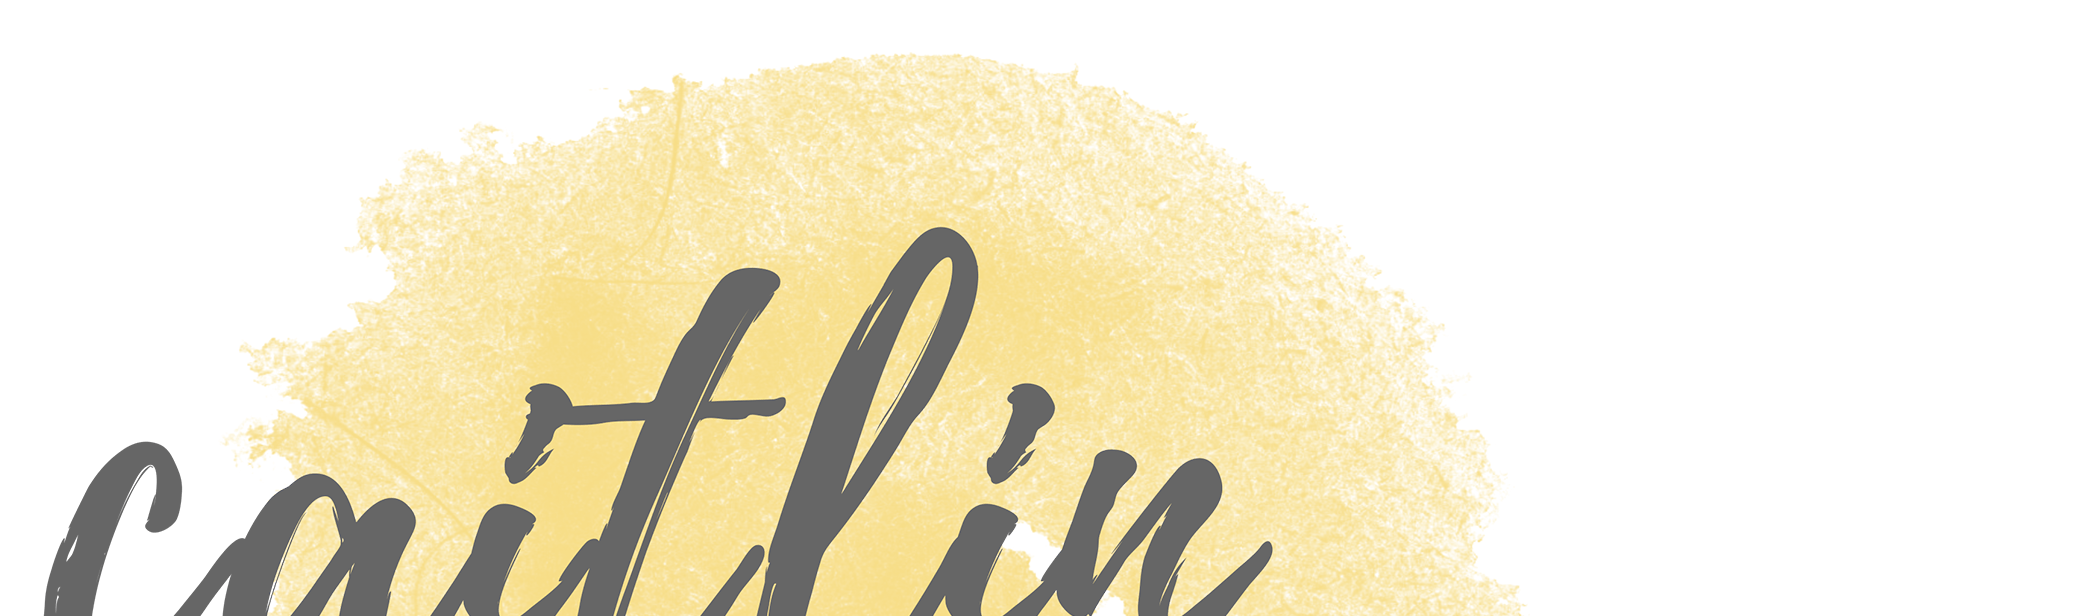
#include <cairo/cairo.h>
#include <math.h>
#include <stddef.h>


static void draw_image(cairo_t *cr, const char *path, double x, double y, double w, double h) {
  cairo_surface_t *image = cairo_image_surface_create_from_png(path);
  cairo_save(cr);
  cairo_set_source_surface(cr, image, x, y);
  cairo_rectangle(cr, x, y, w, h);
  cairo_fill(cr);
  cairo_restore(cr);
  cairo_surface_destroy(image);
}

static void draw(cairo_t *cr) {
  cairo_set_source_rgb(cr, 1, 1, 1);
  cairo_paint(cr);
  draw_image(cr, "images/1.png", 43, 52, 1487, 564);
}

int main(void) {
  cairo_surface_t *surface = cairo_image_surface_create(CAIRO_FORMAT_RGB24, 2075, 616);
  cairo_t *cr = cairo_create(surface);
  cairo_font_options_t *options = cairo_font_options_create();
  cairo_font_options_set_hint_metrics(options, CAIRO_HINT_METRICS_OFF);
  cairo_font_options_set_hint_style(options, CAIRO_HINT_STYLE_NONE);
  cairo_set_font_options(cr, options);
  cairo_set_miter_limit(cr, 4);
  draw(cr);
  cairo_surface_write_to_png(surface, "out.png");
  cairo_font_options_destroy(options);
  cairo_destroy(cr);
  cairo_surface_destroy(surface);
  return 0;
}
